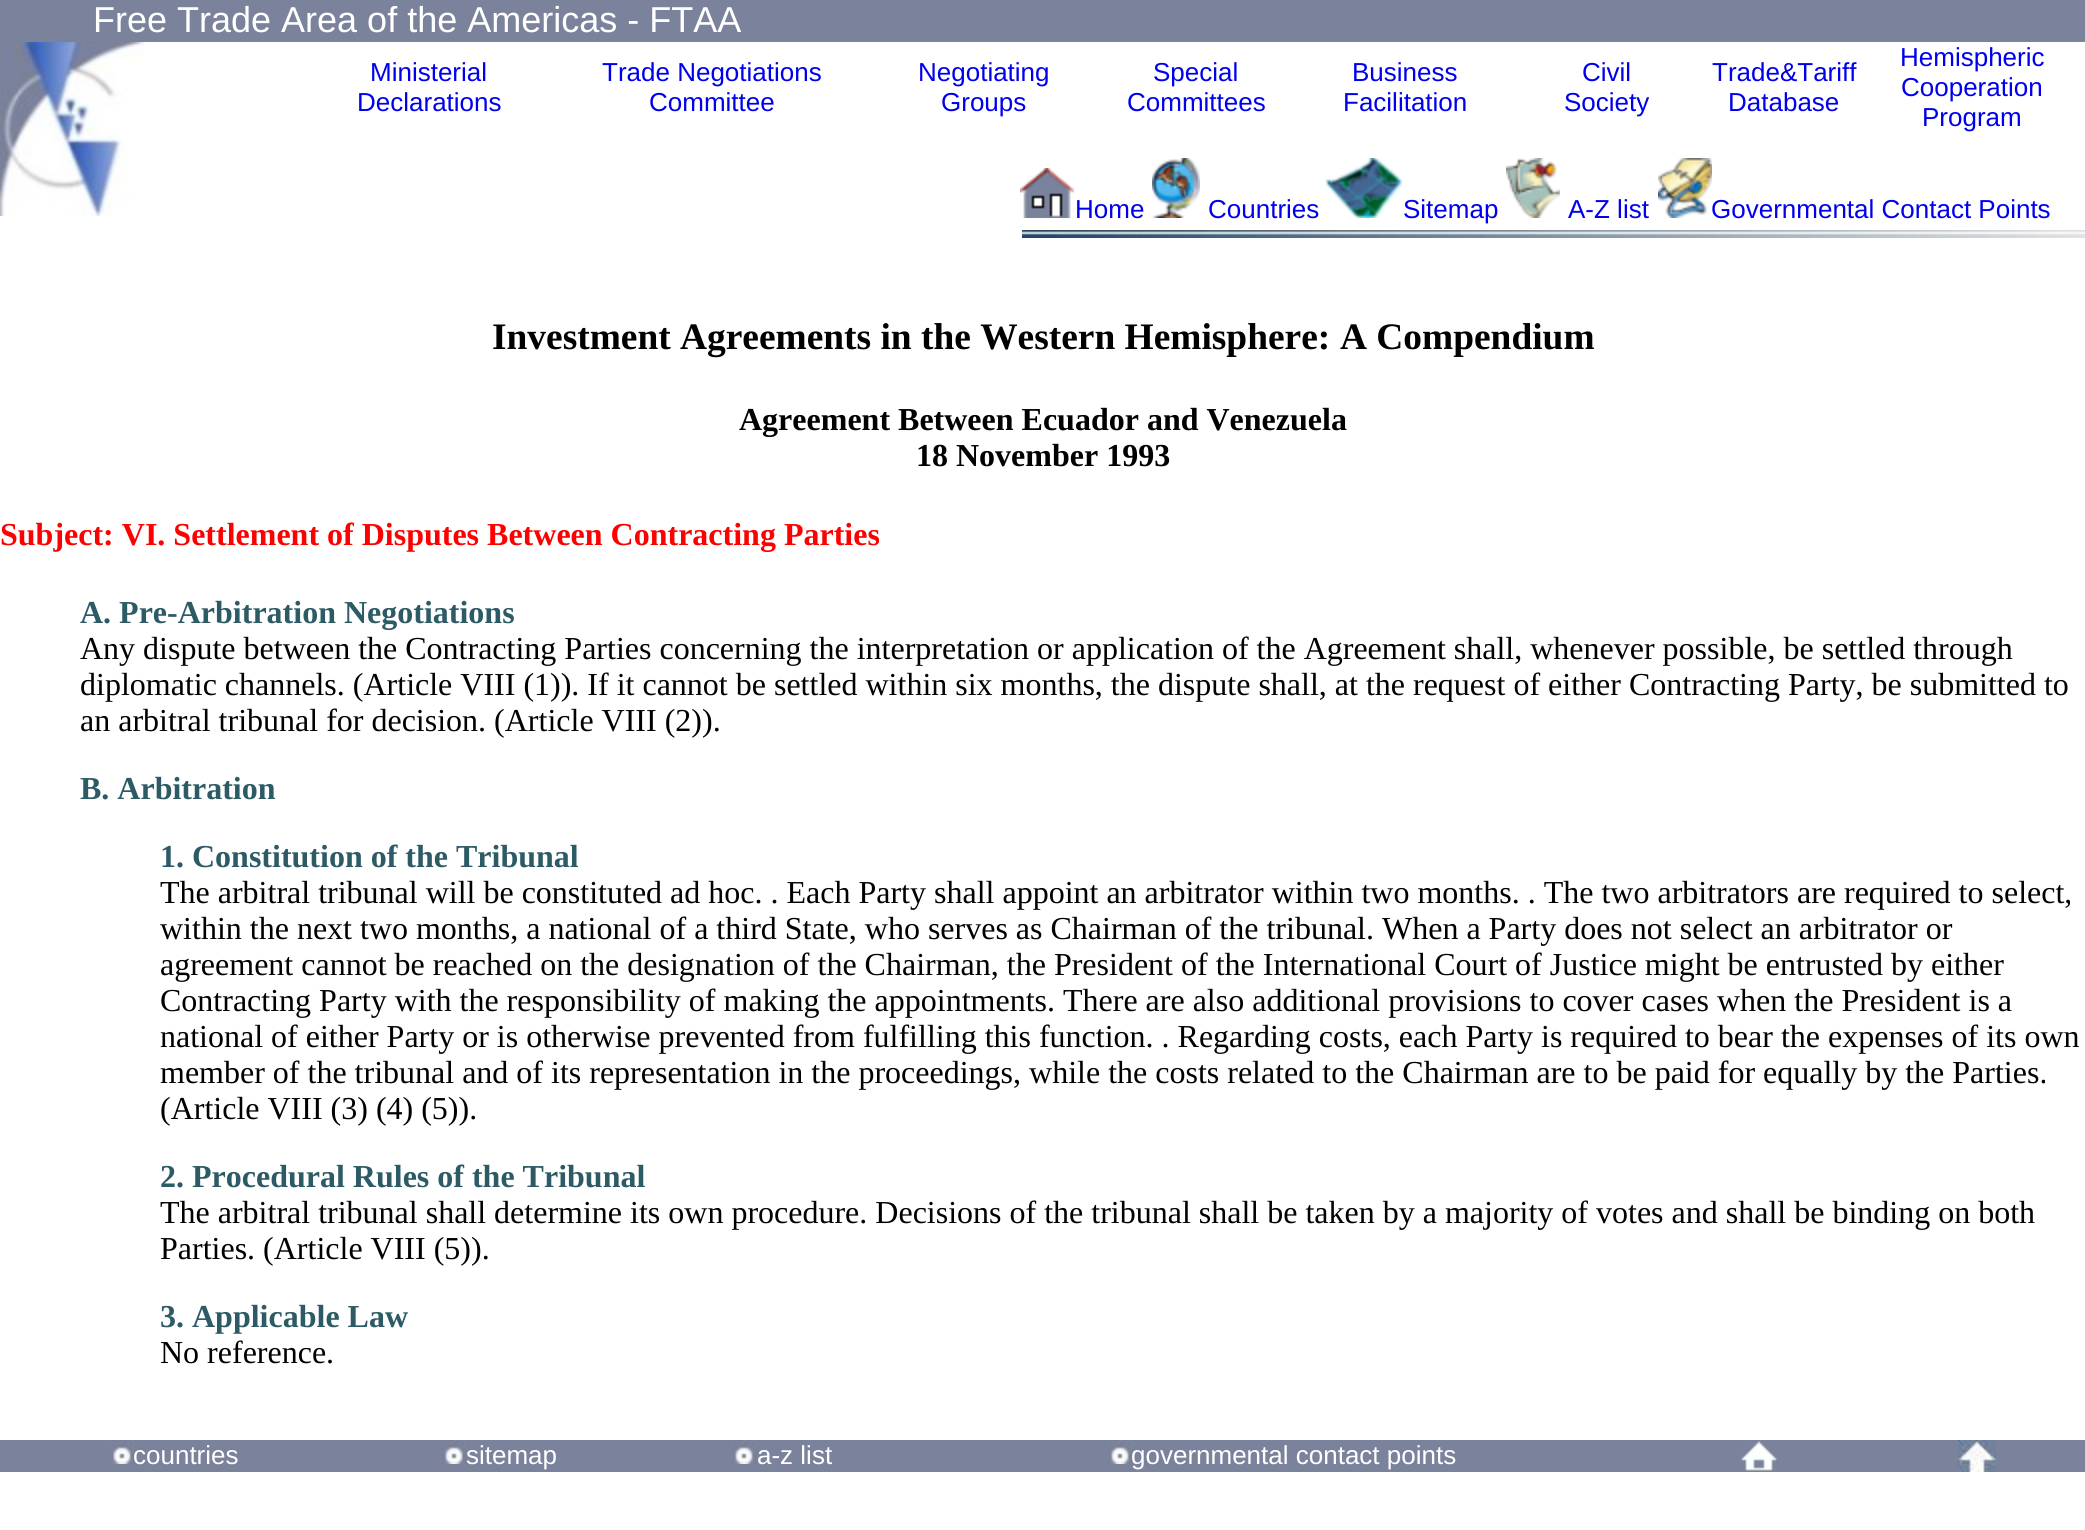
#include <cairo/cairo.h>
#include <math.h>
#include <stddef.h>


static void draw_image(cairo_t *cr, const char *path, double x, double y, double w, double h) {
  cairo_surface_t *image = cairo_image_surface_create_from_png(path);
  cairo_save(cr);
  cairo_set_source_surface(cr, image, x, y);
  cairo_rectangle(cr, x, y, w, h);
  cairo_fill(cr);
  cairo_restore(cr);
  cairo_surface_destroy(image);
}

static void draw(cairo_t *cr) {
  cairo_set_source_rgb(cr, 1, 1, 1);
  cairo_paint(cr);
  cairo_set_source_rgb(cr, 123 / 255.0, 130 / 255.0, 156 / 255.0);
  cairo_rectangle(cr, 0, 0, 2085, 42);
  cairo_fill(cr);
  draw_image(cr, "images/1.png", 0, 42, 145, 174);
  draw_image(cr, "images/2.png", 1020, 168, 54, 50);
  draw_image(cr, "images/3.png", 1152, 158, 48, 60);
  draw_image(cr, "images/4.png", 1326, 158, 76, 60);
  draw_image(cr, "images/5.png", 1506, 158, 54, 60);
  draw_image(cr, "images/6.png", 1658, 158, 54, 60);
  draw_image(cr, "images/7.png", 1022, 230, 1063, 8);
  cairo_rectangle(cr, 0, 1440, 2085, 32);
  cairo_fill(cr);
  draw_image(cr, "images/8.png", 110, 1440, 24, 24);
  draw_image(cr, "images/8.png", 442, 1440, 24, 24);
  draw_image(cr, "images/8.png", 732, 1440, 24, 24);
  draw_image(cr, "images/8.png", 1108, 1440, 24, 24);
  draw_image(cr, "images/9.png", 1741, 1440, 36, 32);
  draw_image(cr, "images/10.png", 1958, 1440, 38, 32);
  cairo_select_font_face(cr, "Liberation Sans", CAIRO_FONT_SLANT_NORMAL, CAIRO_FONT_WEIGHT_NORMAL);
  cairo_set_font_size(cr, 36);
  cairo_set_source_rgb(cr, 1, 1, 1);
  cairo_move_to(cr, 93, 32);
  cairo_show_text(cr, "Free Trade Area of the Americas - FTAA");
  cairo_set_font_size(cr, 26);
  cairo_set_source_rgb(cr, 0, 0, 238 / 255.0);
  cairo_move_to(cr, 370, 81);
  cairo_show_text(cr, "Ministerial");
  cairo_move_to(cr, 357, 111);
  cairo_show_text(cr, "Declarations");
  cairo_move_to(cr, 602, 81);
  cairo_show_text(cr, "Trade Negotiations");
  cairo_move_to(cr, 649, 111);
  cairo_show_text(cr, "Committee");
  cairo_move_to(cr, 918, 81);
  cairo_show_text(cr, "Negotiating");
  cairo_move_to(cr, 941, 111);
  cairo_show_text(cr, "Groups");
  cairo_move_to(cr, 1153, 81);
  cairo_show_text(cr, "Special");
  cairo_move_to(cr, 1127, 111);
  cairo_show_text(cr, "Committees");
  cairo_move_to(cr, 1352, 81);
  cairo_show_text(cr, "Business");
  cairo_move_to(cr, 1343, 111);
  cairo_show_text(cr, "Facilitation");
  cairo_move_to(cr, 1582, 81);
  cairo_show_text(cr, "Civil");
  cairo_move_to(cr, 1564, 111);
  cairo_show_text(cr, "Society");
  cairo_move_to(cr, 1712, 81);
  cairo_show_text(cr, "Trade&Tariff");
  cairo_move_to(cr, 1728, 111);
  cairo_show_text(cr, "Database");
  cairo_move_to(cr, 1900, 66);
  cairo_show_text(cr, "Hemispheric");
  cairo_move_to(cr, 1901, 96);
  cairo_show_text(cr, "Cooperation");
  cairo_move_to(cr, 1922, 126);
  cairo_show_text(cr, "Program");
  cairo_move_to(cr, 1075, 218);
  cairo_show_text(cr, "Home");
  cairo_move_to(cr, 1208, 218);
  cairo_show_text(cr, "Countries");
  cairo_move_to(cr, 1403, 218);
  cairo_show_text(cr, "Sitemap");
  cairo_move_to(cr, 1568, 218);
  cairo_show_text(cr, "A-Z list");
  cairo_move_to(cr, 1711, 218);
  cairo_show_text(cr, "Governmental Contact Points");
  cairo_select_font_face(cr, "Liberation Serif", CAIRO_FONT_SLANT_NORMAL, CAIRO_FONT_WEIGHT_BOLD);
  cairo_set_font_size(cr, 37.4);
  cairo_set_source_rgb(cr, 0, 0, 0);
  cairo_move_to(cr, 492, 349);
  cairo_show_text(cr, "Investment Agreements in the Western Hemisphere:");
  cairo_move_to(cr, 1340, 349);
  cairo_show_text(cr, "A Compendium");
  cairo_set_font_size(cr, 32);
  cairo_move_to(cr, 739, 430);
  cairo_show_text(cr, "Agreement Between Ecuador and Venezuela");
  cairo_move_to(cr, 916, 466);
  cairo_show_text(cr, "18 November 1993");
  cairo_set_source_rgb(cr, 1, 0, 0);
  cairo_move_to(cr, 0, 545);
  cairo_show_text(cr, "Subject: VI. Settlement of Disputes Between Contracting Parties");
  cairo_set_source_rgb(cr, 44 / 255.0, 91 / 255.0, 102 / 255.0);
  cairo_move_to(cr, 80, 623);
  cairo_show_text(cr, "A. Pre-Arbitration Negotiations");
  cairo_select_font_face(cr, "Liberation Serif", CAIRO_FONT_SLANT_NORMAL, CAIRO_FONT_WEIGHT_NORMAL);
  cairo_set_source_rgb(cr, 0, 0, 0);
  cairo_move_to(cr, 80, 659);
  cairo_show_text(cr, "Any dispute between the Contracting Parties concerning the interpretation or application of the Agreement shall, whenever possible, be settled through");
  cairo_move_to(cr, 80, 695);
  cairo_show_text(cr, "diplomatic channels. (Article VIII (1)). If it cannot be settled within six months, the dispute shall, at the request of either Contracting Party, be submitted to");
  cairo_move_to(cr, 80, 731);
  cairo_show_text(cr, "an arbitral tribunal for decision. (Article VIII (2)).");
  cairo_select_font_face(cr, "Liberation Serif", CAIRO_FONT_SLANT_NORMAL, CAIRO_FONT_WEIGHT_BOLD);
  cairo_set_source_rgb(cr, 44 / 255.0, 91 / 255.0, 102 / 255.0);
  cairo_move_to(cr, 80, 799);
  cairo_show_text(cr, "B. Arbitration");
  cairo_move_to(cr, 160, 867);
  cairo_show_text(cr, "1. Constitution of the Tribunal");
  cairo_select_font_face(cr, "Liberation Serif", CAIRO_FONT_SLANT_NORMAL, CAIRO_FONT_WEIGHT_NORMAL);
  cairo_set_source_rgb(cr, 0, 0, 0);
  cairo_move_to(cr, 160, 903);
  cairo_show_text(cr, "The arbitral tribunal will be constituted ad hoc. . Each Party shall appoint an arbitrator within two months. . The two arbitrators are required to select,");
  cairo_move_to(cr, 160, 939);
  cairo_show_text(cr, "within the next two months, a national of a third State, who serves as Chairman of the tribunal. When a Party does not select an arbitrator or");
  cairo_move_to(cr, 160, 975);
  cairo_show_text(cr, "agreement cannot be reached on the designation of the Chairman, the President of the International Court of Justice might be entrusted by either");
  cairo_move_to(cr, 160, 1011);
  cairo_show_text(cr, "Contracting Party with the responsibility of making the appointments. There are also additional provisions to cover cases when the President is a");
  cairo_move_to(cr, 160, 1047);
  cairo_show_text(cr, "national of either Party or is otherwise prevented from fulfilling this function. . Regarding costs, each Party is required to bear the expenses of its own");
  cairo_move_to(cr, 160, 1083);
  cairo_show_text(cr, "member of the tribunal and of its representation in the proceedings, while the costs related to the Chairman are to be paid for equally by the Parties.");
  cairo_move_to(cr, 160, 1119);
  cairo_show_text(cr, "(Article VIII (3) (4) (5)).");
  cairo_select_font_face(cr, "Liberation Serif", CAIRO_FONT_SLANT_NORMAL, CAIRO_FONT_WEIGHT_BOLD);
  cairo_set_source_rgb(cr, 44 / 255.0, 91 / 255.0, 102 / 255.0);
  cairo_move_to(cr, 160, 1187);
  cairo_show_text(cr, "2. Procedural Rules of the Tribunal");
  cairo_select_font_face(cr, "Liberation Serif", CAIRO_FONT_SLANT_NORMAL, CAIRO_FONT_WEIGHT_NORMAL);
  cairo_set_source_rgb(cr, 0, 0, 0);
  cairo_move_to(cr, 160, 1223);
  cairo_show_text(cr, "The arbitral tribunal shall determine its own procedure. Decisions of the tribunal shall be taken by a majority of votes and shall be binding on both");
  cairo_move_to(cr, 160, 1259);
  cairo_show_text(cr, "Parties. (Article VIII (5)).");
  cairo_select_font_face(cr, "Liberation Serif", CAIRO_FONT_SLANT_NORMAL, CAIRO_FONT_WEIGHT_BOLD);
  cairo_set_source_rgb(cr, 44 / 255.0, 91 / 255.0, 102 / 255.0);
  cairo_move_to(cr, 160, 1327);
  cairo_show_text(cr, "3. Applicable Law");
  cairo_select_font_face(cr, "Liberation Serif", CAIRO_FONT_SLANT_NORMAL, CAIRO_FONT_WEIGHT_NORMAL);
  cairo_set_source_rgb(cr, 0, 0, 0);
  cairo_move_to(cr, 160, 1363);
  cairo_show_text(cr, "No reference.");
  cairo_select_font_face(cr, "Liberation Sans", CAIRO_FONT_SLANT_NORMAL, CAIRO_FONT_WEIGHT_NORMAL);
  cairo_set_font_size(cr, 26);
  cairo_set_source_rgb(cr, 1, 1, 1);
  cairo_move_to(cr, 133, 1464);
  cairo_show_text(cr, "countries");
  cairo_move_to(cr, 466, 1464);
  cairo_show_text(cr, "sitemap");
  cairo_move_to(cr, 757, 1464);
  cairo_show_text(cr, "a-z list");
  cairo_move_to(cr, 1131, 1464);
  cairo_show_text(cr, "governmental contact points");
}

int main(void) {
  cairo_surface_t *surface = cairo_image_surface_create(CAIRO_FORMAT_RGB24, 2085, 1530);
  cairo_t *cr = cairo_create(surface);
  cairo_font_options_t *options = cairo_font_options_create();
  cairo_font_options_set_hint_metrics(options, CAIRO_HINT_METRICS_OFF);
  cairo_font_options_set_hint_style(options, CAIRO_HINT_STYLE_NONE);
  cairo_set_font_options(cr, options);
  cairo_set_miter_limit(cr, 4);
  draw(cr);
  cairo_surface_write_to_png(surface, "out.png");
  cairo_font_options_destroy(options);
  cairo_destroy(cr);
  cairo_surface_destroy(surface);
  return 0;
}
